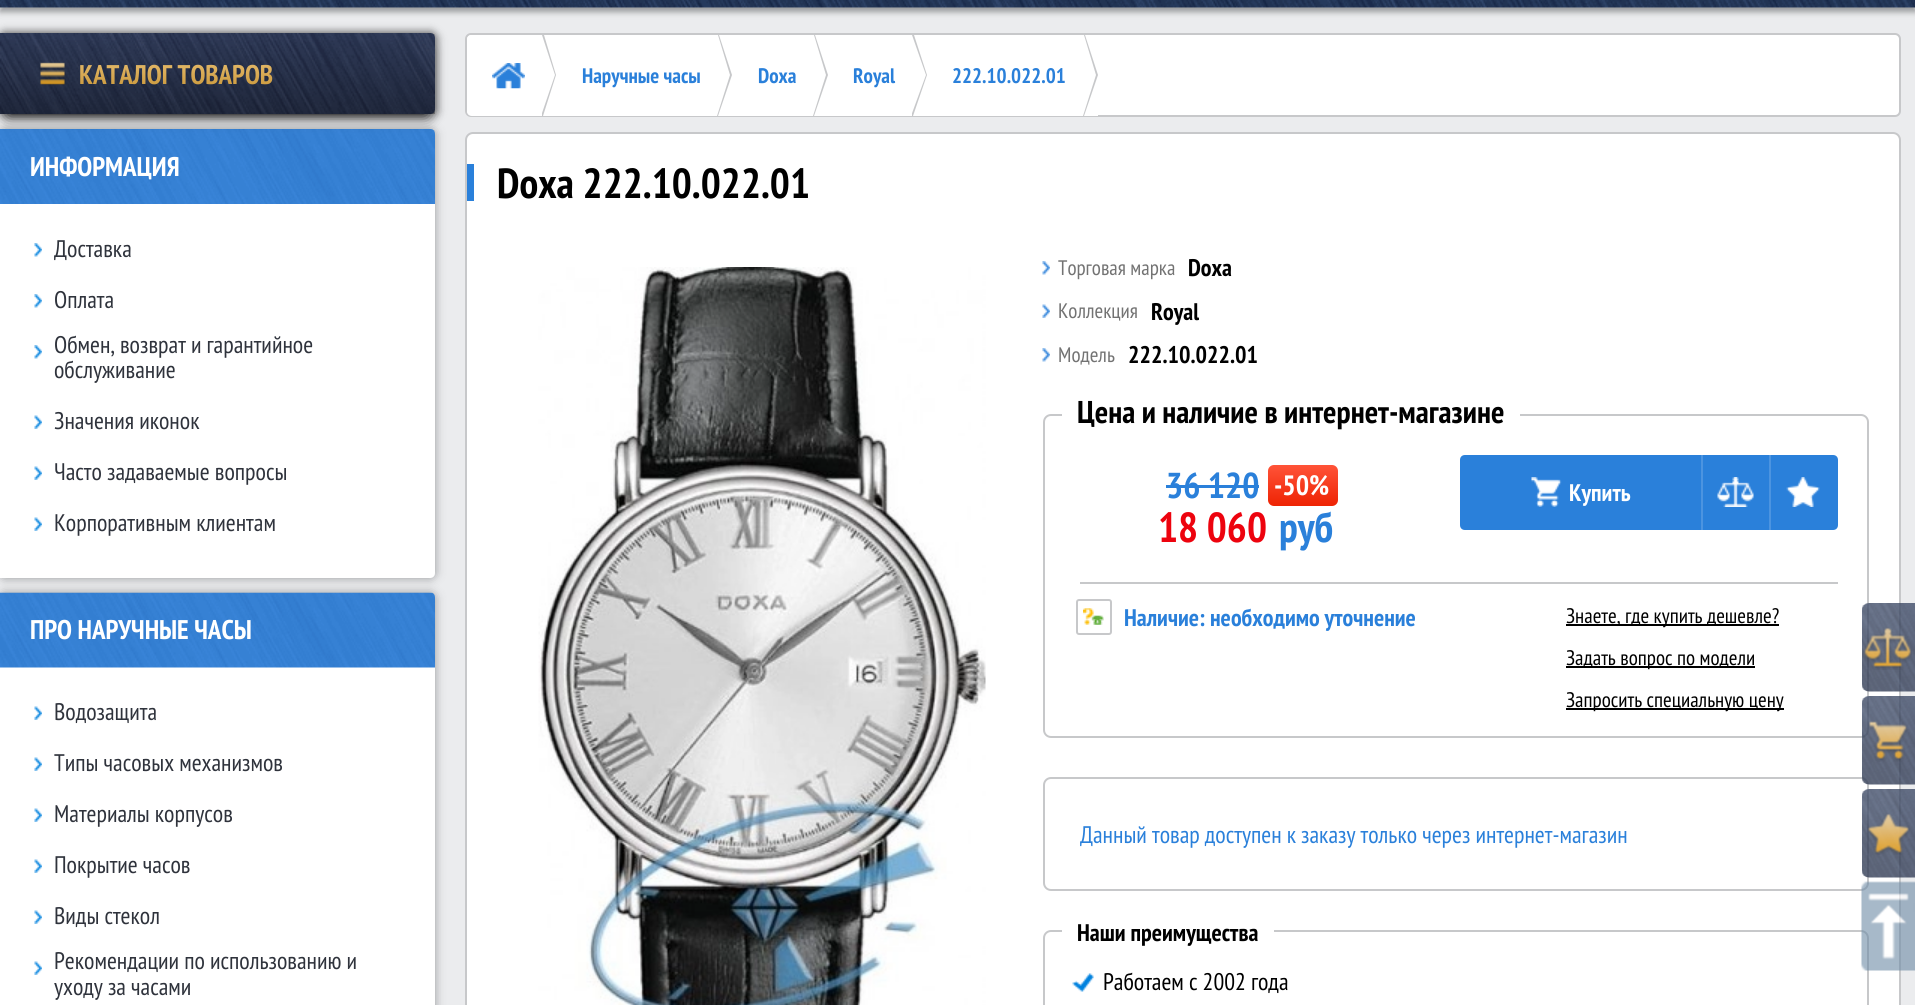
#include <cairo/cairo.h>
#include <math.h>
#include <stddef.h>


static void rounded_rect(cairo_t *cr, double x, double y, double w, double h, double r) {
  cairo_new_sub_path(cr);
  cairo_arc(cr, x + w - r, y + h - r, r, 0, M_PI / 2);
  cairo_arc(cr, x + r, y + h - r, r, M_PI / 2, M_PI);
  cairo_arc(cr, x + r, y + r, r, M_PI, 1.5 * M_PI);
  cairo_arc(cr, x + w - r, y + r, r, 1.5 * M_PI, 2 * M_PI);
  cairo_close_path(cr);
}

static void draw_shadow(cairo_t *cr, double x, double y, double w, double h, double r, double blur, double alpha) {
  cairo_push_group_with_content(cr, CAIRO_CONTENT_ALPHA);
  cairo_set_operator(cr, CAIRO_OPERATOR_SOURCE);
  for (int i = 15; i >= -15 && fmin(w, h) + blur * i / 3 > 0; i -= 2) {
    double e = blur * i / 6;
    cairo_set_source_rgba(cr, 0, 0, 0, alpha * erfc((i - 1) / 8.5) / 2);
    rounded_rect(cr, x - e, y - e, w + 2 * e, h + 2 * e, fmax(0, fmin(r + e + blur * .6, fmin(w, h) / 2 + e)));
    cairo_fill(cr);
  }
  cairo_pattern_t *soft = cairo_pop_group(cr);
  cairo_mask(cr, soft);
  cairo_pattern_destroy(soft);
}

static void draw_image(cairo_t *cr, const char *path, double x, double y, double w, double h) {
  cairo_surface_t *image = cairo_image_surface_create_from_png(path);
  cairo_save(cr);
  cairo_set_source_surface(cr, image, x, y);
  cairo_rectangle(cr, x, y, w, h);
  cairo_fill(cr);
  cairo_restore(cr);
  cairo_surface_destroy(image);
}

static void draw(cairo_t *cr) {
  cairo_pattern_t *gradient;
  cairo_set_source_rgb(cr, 1, 1, 1);
  cairo_paint(cr);
  cairo_set_source_rgb(cr, 235 / 255.0, 236 / 255.0, 238 / 255.0);
  cairo_rectangle(cr, 0, 8, 1915, 997);
  cairo_fill(cr);
  cairo_set_source_rgb(cr, 45 / 255.0, 47 / 255.0, 49 / 255.0);
  draw_shadow(cr, 0, -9, 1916, 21, 0, 3, 0.43);
  draw_image(cr, "images/1.png", 0, 0, 1915, 8);
  cairo_set_source_rgb(cr, 0, 0, 0);
  draw_shadow(cr, 0, 33, 435, 81, 5, 4, 0.49);
  draw_image(cr, "images/2.png", 0, 33, 435, 81);
  cairo_set_source_rgb(cr, 45 / 255.0, 47 / 255.0, 49 / 255.0);
  draw_shadow(cr, 0, 129, 435, 449, 5, 5, 0.45);
  draw_image(cr, "images/4.png", 0, 129, 435, 75);
  cairo_save(cr);
  cairo_set_fill_rule(cr, CAIRO_FILL_RULE_EVEN_ODD);
  cairo_new_path(cr);
  cairo_move_to(cr, 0, 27);
  cairo_line_to(cr, 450, 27);
  cairo_line_to(cr, 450, 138);
  cairo_line_to(cr, 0, 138);
  cairo_close_path(cr);
  cairo_move_to(cr, 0, 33);
  cairo_line_to(cr, 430, 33);
  cairo_curve_to(cr, 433, 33, 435, 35, 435, 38);
  cairo_line_to(cr, 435, 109);
  cairo_curve_to(cr, 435, 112, 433, 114, 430, 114);
  cairo_line_to(cr, 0, 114);
  cairo_close_path(cr);
  cairo_clip(cr);
  cairo_set_source_rgb(cr, 0, 0, 0);
  draw_shadow(cr, 9, 51, 417, 63, 0, 7.5, 1);
  cairo_restore(cr);
  cairo_save(cr);
  cairo_set_fill_rule(cr, CAIRO_FILL_RULE_EVEN_ODD);
  cairo_new_path(cr);
  cairo_move_to(cr, 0, 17);
  cairo_line_to(cr, 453, 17);
  cairo_line_to(cr, 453, 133);
  cairo_line_to(cr, 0, 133);
  cairo_close_path(cr);
  cairo_move_to(cr, 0, 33);
  cairo_line_to(cr, 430, 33);
  cairo_curve_to(cr, 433, 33, 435, 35, 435, 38);
  cairo_line_to(cr, 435, 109);
  cairo_curve_to(cr, 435, 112, 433, 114, 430, 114);
  cairo_line_to(cr, 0, 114);
  cairo_close_path(cr);
  cairo_clip(cr);
  cairo_set_source_rgb(cr, 0, 0, 0);
  draw_shadow(cr, -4, 30, 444, 90, 9, 4, 0.2);
  cairo_restore(cr);
  draw_image(cr, "images/3.png", 40, 62, 26, 23);
  cairo_set_source_rgb(cr, 1, 1, 1);
  cairo_new_path(cr);
  cairo_move_to(cr, 0, 204);
  cairo_line_to(cr, 435, 204);
  cairo_line_to(cr, 435, 573);
  cairo_curve_to(cr, 435, 576, 433, 578, 430, 578);
  cairo_line_to(cr, 0, 578);
  cairo_close_path(cr);
  cairo_fill(cr);
  draw_image(cr, "images/5.png", 34, 243, 8, 14);
  draw_image(cr, "images/5.png", 34, 294, 8, 14);
  draw_image(cr, "images/5.png", 34, 345, 8, 14);
  draw_image(cr, "images/6.png", 34, 415, 8, 14);
  draw_image(cr, "images/6.png", 34, 466, 8, 14);
  draw_image(cr, "images/6.png", 34, 517, 8, 14);
  cairo_set_source_rgb(cr, 45 / 255.0, 47 / 255.0, 49 / 255.0);
  draw_shadow(cr, 0, 593, 435, 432, 5, 5, 0.45);
  cairo_set_source_rgb(cr, 1, 1, 1);
  cairo_new_path(cr);
  cairo_move_to(cr, 0, 593);
  cairo_line_to(cr, 430, 593);
  cairo_curve_to(cr, 433, 593, 435, 595, 435, 598);
  cairo_line_to(cr, 435, 1005);
  cairo_curve_to(cr, 435, 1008, 433, 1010, 430, 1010);
  cairo_line_to(cr, 0, 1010);
  cairo_close_path(cr);
  cairo_fill(cr);
  draw_image(cr, "images/7.png", 0, 592, 435, 76);
  draw_image(cr, "images/6.png", 34, 706, 8, 14);
  draw_image(cr, "images/6.png", 34, 757, 8, 14);
  draw_image(cr, "images/6.png", 34, 808, 8, 14);
  draw_image(cr, "images/6.png", 34, 859, 8, 14);
  draw_image(cr, "images/6.png", 34, 910, 8, 14);
  draw_image(cr, "images/6.png", 34, 961, 8, 14);
  rounded_rect(cr, 466, 34, 1434, 82, 5);
  cairo_fill_preserve(cr);
  cairo_set_source_rgb(cr, 199 / 255.0, 200 / 255.0, 202 / 255.0);
  cairo_stroke(cr);
  cairo_set_source_rgb(cr, 1, 1, 1);
  cairo_new_path(cr);
  cairo_move_to(cr, 472, 35);
  cairo_line_to(cr, 557, 35);
  cairo_line_to(cr, 557, 116);
  cairo_line_to(cr, 472, 116);
  cairo_curve_to(cr, 469, 116, 467, 114, 467, 111);
  cairo_line_to(cr, 467, 40);
  cairo_curve_to(cr, 467, 37, 469, 35, 472, 35);
  cairo_close_path(cr);
  cairo_fill(cr);
  cairo_set_source_rgb(cr, 199 / 255.0, 200 / 255.0, 202 / 255.0);
  cairo_new_path(cr);
  cairo_move_to(cr, 544, 35);
  cairo_line_to(cr, 556, 75);
  cairo_line_to(cr, 543, 116);
  cairo_line_to(cr, 542, 116);
  cairo_line_to(cr, 542, 35);
  cairo_close_path(cr);
  cairo_fill(cr);
  cairo_set_source_rgb(cr, 1, 1, 1);
  cairo_new_path(cr);
  cairo_move_to(cr, 542, 35);
  cairo_line_to(cr, 555, 75);
  cairo_line_to(cr, 541, 116);
  cairo_line_to(cr, 540, 116);
  cairo_line_to(cr, 540, 35);
  cairo_close_path(cr);
  cairo_fill(cr);
  draw_image(cr, "images/8.png", 492, 63, 33, 26);
  cairo_rectangle(cr, 557, 115, 541, 1);
  cairo_fill(cr);
  cairo_set_source_rgb(cr, 199 / 255.0, 200 / 255.0, 202 / 255.0);
  cairo_new_path(cr);
  cairo_move_to(cr, 719, 35);
  cairo_line_to(cr, 732, 75);
  cairo_line_to(cr, 718, 116);
  cairo_line_to(cr, 717, 116);
  cairo_line_to(cr, 717, 35);
  cairo_close_path(cr);
  cairo_fill(cr);
  cairo_set_source_rgb(cr, 1, 1, 1);
  cairo_new_path(cr);
  cairo_move_to(cr, 718, 35);
  cairo_line_to(cr, 730, 75);
  cairo_line_to(cr, 717, 116);
  cairo_line_to(cr, 716, 116);
  cairo_line_to(cr, 716, 35);
  cairo_close_path(cr);
  cairo_fill(cr);
  cairo_set_source_rgb(cr, 199 / 255.0, 200 / 255.0, 202 / 255.0);
  cairo_new_path(cr);
  cairo_move_to(cr, 815, 35);
  cairo_line_to(cr, 828, 75);
  cairo_line_to(cr, 814, 116);
  cairo_line_to(cr, 813, 116);
  cairo_line_to(cr, 813, 35);
  cairo_close_path(cr);
  cairo_fill(cr);
  cairo_set_source_rgb(cr, 1, 1, 1);
  cairo_new_path(cr);
  cairo_move_to(cr, 814, 35);
  cairo_line_to(cr, 826, 75);
  cairo_line_to(cr, 813, 116);
  cairo_line_to(cr, 812, 116);
  cairo_line_to(cr, 812, 35);
  cairo_close_path(cr);
  cairo_fill(cr);
  cairo_set_source_rgb(cr, 199 / 255.0, 200 / 255.0, 202 / 255.0);
  cairo_new_path(cr);
  cairo_move_to(cr, 914, 35);
  cairo_line_to(cr, 927, 75);
  cairo_line_to(cr, 913, 116);
  cairo_line_to(cr, 912, 116);
  cairo_line_to(cr, 912, 35);
  cairo_close_path(cr);
  cairo_fill(cr);
  cairo_set_source_rgb(cr, 1, 1, 1);
  cairo_new_path(cr);
  cairo_move_to(cr, 912, 35);
  cairo_line_to(cr, 926, 75);
  cairo_line_to(cr, 911, 116);
  cairo_line_to(cr, 910, 116);
  cairo_line_to(cr, 910, 35);
  cairo_close_path(cr);
  cairo_fill(cr);
  cairo_set_source_rgb(cr, 199 / 255.0, 200 / 255.0, 202 / 255.0);
  cairo_new_path(cr);
  cairo_move_to(cr, 1085, 35);
  cairo_line_to(cr, 1098, 75);
  cairo_line_to(cr, 1084, 116);
  cairo_line_to(cr, 1083, 116);
  cairo_line_to(cr, 1083, 35);
  cairo_close_path(cr);
  cairo_fill(cr);
  cairo_set_source_rgb(cr, 1, 1, 1);
  cairo_new_path(cr);
  cairo_move_to(cr, 1084, 35);
  cairo_line_to(cr, 1096, 75);
  cairo_line_to(cr, 1083, 116);
  cairo_line_to(cr, 1082, 116);
  cairo_line_to(cr, 1082, 35);
  cairo_close_path(cr);
  cairo_fill(cr);
  rounded_rect(cr, 466, 133, 1434, 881, 7);
  cairo_fill_preserve(cr);
  cairo_set_source_rgb(cr, 199 / 255.0, 200 / 255.0, 202 / 255.0);
  cairo_stroke(cr);
  cairo_set_source_rgb(cr, 42 / 255.0, 128 / 255.0, 218 / 255.0);
  cairo_rectangle(cr, 467, 164, 7, 37);
  cairo_fill(cr);
  draw_image(cr, "images/9.png", 538, 267, 448, 738);
  draw_image(cr, "images/10.png", 1042, 261, 8, 14);
  draw_image(cr, "images/11.png", 1042, 304, 8, 14);
  draw_image(cr, "images/10.png", 1042, 348, 8, 14);
  rounded_rect(cr, 1044, 415, 824, 322, 7);
  cairo_set_source_rgb(cr, 199 / 255.0, 200 / 255.0, 202 / 255.0);
  cairo_stroke(cr);
  cairo_set_source_rgb(cr, 1, 1, 1);
  cairo_rectangle(cr, 1062, 414, 458, 2);
  cairo_fill(cr);
  cairo_set_source_rgb(cr, 199 / 255.0, 200 / 255.0, 202 / 255.0);
  cairo_rectangle(cr, 1080, 582, 758, 2);
  cairo_fill(cr);
  cairo_set_source_rgb(cr, 42 / 255.0, 128 / 255.0, 218 / 255.0);
  cairo_rectangle(cr, 1166, 485, 93, 3);
  cairo_fill(cr);
  gradient = cairo_pattern_create_linear(1303, 465, 1303, 506);
  cairo_pattern_add_color_stop_rgba(gradient, 0, 1, 83 / 255.0, 56 / 255.0, 1);
  cairo_pattern_add_color_stop_rgba(gradient, 1, 238 / 255.0, 35 / 255.0, 3 / 255.0, 1);
  cairo_set_source(cr, gradient);
  cairo_pattern_destroy(gradient);
  rounded_rect(cr, 1268, 465, 70, 41, 6);
  cairo_fill(cr);
  cairo_set_source_rgb(cr, 42 / 255.0, 128 / 255.0, 218 / 255.0);
  cairo_new_path(cr);
  cairo_move_to(cr, 1465, 455);
  cairo_line_to(cr, 1703, 455);
  cairo_line_to(cr, 1703, 530);
  cairo_line_to(cr, 1465, 530);
  cairo_curve_to(cr, 1462, 530, 1460, 528, 1460, 525);
  cairo_line_to(cr, 1460, 460);
  cairo_curve_to(cr, 1460, 457, 1462, 455, 1465, 455);
  cairo_close_path(cr);
  cairo_fill(cr);
  draw_image(cr, "images/12.png", 1531, 477, 31, 30);
  cairo_set_source_rgb(cr, 76 / 255.0, 148 / 255.0, 224 / 255.0);
  cairo_rectangle(cr, 1701, 455, 2, 75);
  cairo_fill(cr);
  cairo_set_source_rgb(cr, 42 / 255.0, 128 / 255.0, 218 / 255.0);
  cairo_rectangle(cr, 1703, 455, 66, 75);
  cairo_fill(cr);
  draw_image(cr, "images/13.png", 1717, 477, 37, 30);
  cairo_new_path(cr);
  cairo_move_to(cr, 1770, 455);
  cairo_line_to(cr, 1833, 455);
  cairo_curve_to(cr, 1836, 455, 1838, 457, 1838, 460);
  cairo_line_to(cr, 1838, 525);
  cairo_curve_to(cr, 1838, 528, 1836, 530, 1833, 530);
  cairo_line_to(cr, 1770, 530);
  cairo_close_path(cr);
  cairo_fill(cr);
  cairo_set_source_rgb(cr, 76 / 255.0, 148 / 255.0, 224 / 255.0);
  cairo_rectangle(cr, 1769, 455, 2, 75);
  cairo_fill(cr);
  draw_image(cr, "images/14.png", 1786, 477, 34, 30);
  rounded_rect(cr, 1077, 600, 34, 34, 2);
  cairo_set_source_rgb(cr, 199 / 255.0, 200 / 255.0, 202 / 255.0);
  cairo_stroke(cr);
  draw_image(cr, "images/15.png", 1083, 608, 21, 17);
  cairo_set_source_rgb(cr, 0, 0, 0);
  cairo_rectangle(cr, 1566, 624, 213, 2);
  cairo_fill(cr);
  cairo_rectangle(cr, 1566, 666, 189, 2);
  cairo_fill(cr);
  cairo_rectangle(cr, 1566, 708, 218, 2);
  cairo_fill(cr);
  rounded_rect(cr, 1044, 778, 824, 112, 7);
  cairo_set_source_rgb(cr, 199 / 255.0, 200 / 255.0, 202 / 255.0);
  cairo_stroke(cr);
  rounded_rect(cr, 1044, 931, 824, 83, 7);
  cairo_stroke(cr);
  cairo_set_source_rgb(cr, 1, 1, 1);
  cairo_rectangle(cr, 1062, 930, 212, 2);
  cairo_fill(cr);
  draw_image(cr, "images/16.png", 1072, 973, 22, 19);
  draw_image(cr, "images/17.png", 1862, 603, 53, 89);
  draw_image(cr, "images/18.png", 1863, 627, 49, 43);
  draw_image(cr, "images/19.png", 1862, 696, 53, 89);
  draw_image(cr, "images/20.png", 1868, 721, 39, 41);
  draw_image(cr, "images/17.png", 1862, 789, 53, 89);
  draw_image(cr, "images/21.png", 1867, 813, 43, 42);
  draw_image(cr, "images/22.png", 1861, 881, 54, 90);
  cairo_select_font_face(cr, "PT Sans Narrow", CAIRO_FONT_SLANT_NORMAL, CAIRO_FONT_WEIGHT_BOLD);
  cairo_set_font_size(cr, 27);
  gradient = cairo_pattern_create_linear(218, 33, 218, 114);
  cairo_pattern_add_color_stop_rgba(gradient, 0, 1, 223 / 255.0, 164 / 255.0, 1);
  cairo_pattern_add_color_stop_rgba(gradient, 1, 1, 179 / 255.0, 37 / 255.0, 1);
  cairo_set_source(cr, gradient);
  cairo_pattern_destroy(gradient);
  cairo_move_to(cr, 79, 84);
  cairo_show_text(cr, "КАТАЛОГ ТОВАРОВ");
  gradient = cairo_pattern_create_linear(218, 33, 218, 114);
  cairo_pattern_add_color_stop_rgba(gradient, 0, 0, 0, 0, 0);
  cairo_pattern_add_color_stop_rgba(gradient, 1, 0, 0, 0, 0.3);
  cairo_set_source(cr, gradient);
  cairo_pattern_destroy(gradient);
  cairo_rectangle(cr, 0, 40, 435, 74);
  cairo_fill(cr);
  cairo_set_source_rgb(cr, 1, 1, 1);
  cairo_move_to(cr, 30, 176);
  cairo_show_text(cr, "ИНФОРМАЦИЯ");
  cairo_select_font_face(cr, "PT Sans Narrow", CAIRO_FONT_SLANT_NORMAL, CAIRO_FONT_WEIGHT_NORMAL);
  cairo_set_font_size(cr, 24);
  cairo_set_source_rgb(cr, 47 / 255.0, 51 / 255.0, 60 / 255.0);
  cairo_move_to(cr, 54, 257);
  cairo_show_text(cr, "Доставка");
  cairo_move_to(cr, 54, 308);
  cairo_show_text(cr, "Оплата");
  cairo_move_to(cr, 54, 353);
  cairo_show_text(cr, "Обмен, возврат и гарантийное");
  cairo_move_to(cr, 54, 378);
  cairo_show_text(cr, "обслуживание");
  cairo_move_to(cr, 54, 429);
  cairo_show_text(cr, "Значения иконок");
  cairo_move_to(cr, 54, 480);
  cairo_show_text(cr, "Часто задаваемые вопросы");
  cairo_move_to(cr, 54, 531);
  cairo_show_text(cr, "Корпоративным клиентам");
  cairo_select_font_face(cr, "PT Sans Narrow", CAIRO_FONT_SLANT_NORMAL, CAIRO_FONT_WEIGHT_BOLD);
  cairo_set_font_size(cr, 27);
  cairo_set_source_rgb(cr, 1, 1, 1);
  cairo_move_to(cr, 30, 639);
  cairo_show_text(cr, "ПРО НАРУЧНЫЕ ЧАСЫ");
  cairo_select_font_face(cr, "PT Sans Narrow", CAIRO_FONT_SLANT_NORMAL, CAIRO_FONT_WEIGHT_NORMAL);
  cairo_set_font_size(cr, 24);
  cairo_set_source_rgb(cr, 47 / 255.0, 51 / 255.0, 60 / 255.0);
  cairo_move_to(cr, 54, 720);
  cairo_show_text(cr, "Водозащита");
  cairo_move_to(cr, 54, 771);
  cairo_show_text(cr, "Типы часовых механизмов");
  cairo_move_to(cr, 54, 822);
  cairo_show_text(cr, "Материалы корпусов");
  cairo_move_to(cr, 54, 873);
  cairo_show_text(cr, "Покрытие часов");
  cairo_move_to(cr, 54, 924);
  cairo_show_text(cr, "Виды стекол");
  cairo_move_to(cr, 54, 969);
  cairo_show_text(cr, "Рекомендации по использованию и");
  cairo_move_to(cr, 54, 995);
  cairo_show_text(cr, "уходу за часами");
  cairo_select_font_face(cr, "PT Sans Narrow", CAIRO_FONT_SLANT_NORMAL, CAIRO_FONT_WEIGHT_BOLD);
  cairo_set_font_size(cr, 21);
  cairo_set_source_rgb(cr, 42 / 255.0, 128 / 255.0, 218 / 255.0);
  cairo_move_to(cr, 582, 83);
  cairo_show_text(cr, "Наручные часы");
  cairo_move_to(cr, 758, 83);
  cairo_show_text(cr, "Doxa");
  cairo_move_to(cr, 853, 83);
  cairo_show_text(cr, "Royal");
  cairo_move_to(cr, 952, 83);
  cairo_show_text(cr, "222.10.022.01");
  cairo_set_font_size(cr, 42);
  cairo_set_source_rgb(cr, 0, 0, 0);
  cairo_move_to(cr, 497, 198);
  cairo_show_text(cr, "Doxa 222.10.022.01");
  cairo_select_font_face(cr, "PT Sans Narrow", CAIRO_FONT_SLANT_NORMAL, CAIRO_FONT_WEIGHT_NORMAL);
  cairo_set_font_size(cr, 21);
  cairo_set_source_rgb(cr, 115 / 255.0, 115 / 255.0, 115 / 255.0);
  cairo_move_to(cr, 1058, 275);
  cairo_show_text(cr, "Торговая марка");
  cairo_select_font_face(cr, "PT Sans Narrow", CAIRO_FONT_SLANT_NORMAL, CAIRO_FONT_WEIGHT_BOLD);
  cairo_set_font_size(cr, 24);
  cairo_set_source_rgb(cr, 0, 0, 0);
  cairo_move_to(cr, 1188, 276);
  cairo_show_text(cr, "Doxa");
  cairo_select_font_face(cr, "PT Sans Narrow", CAIRO_FONT_SLANT_NORMAL, CAIRO_FONT_WEIGHT_NORMAL);
  cairo_set_font_size(cr, 21);
  cairo_set_source_rgb(cr, 115 / 255.0, 115 / 255.0, 115 / 255.0);
  cairo_move_to(cr, 1058, 318);
  cairo_show_text(cr, "Коллекция");
  cairo_select_font_face(cr, "PT Sans Narrow", CAIRO_FONT_SLANT_NORMAL, CAIRO_FONT_WEIGHT_BOLD);
  cairo_set_font_size(cr, 24);
  cairo_set_source_rgb(cr, 0, 0, 0);
  cairo_move_to(cr, 1151, 320);
  cairo_show_text(cr, "Royal");
  cairo_select_font_face(cr, "PT Sans Narrow", CAIRO_FONT_SLANT_NORMAL, CAIRO_FONT_WEIGHT_NORMAL);
  cairo_set_font_size(cr, 21);
  cairo_set_source_rgb(cr, 115 / 255.0, 115 / 255.0, 115 / 255.0);
  cairo_move_to(cr, 1058, 362);
  cairo_show_text(cr, "Модель");
  cairo_select_font_face(cr, "PT Sans Narrow", CAIRO_FONT_SLANT_NORMAL, CAIRO_FONT_WEIGHT_BOLD);
  cairo_set_font_size(cr, 24);
  cairo_set_source_rgb(cr, 0, 0, 0);
  cairo_move_to(cr, 1128, 363);
  cairo_show_text(cr, "222.10.022.01");
  cairo_set_font_size(cr, 31.5);
  cairo_move_to(cr, 1077, 423);
  cairo_show_text(cr, "Цена и наличие в интернет-магазине");
  cairo_set_font_size(cr, 36);
  cairo_set_source_rgb(cr, 42 / 255.0, 128 / 255.0, 218 / 255.0);
  cairo_move_to(cr, 1166, 498);
  cairo_show_text(cr, "36 120");
  cairo_set_font_size(cr, 42);
  cairo_set_source_rgb(cr, 237 / 255.0, 3 / 255.0, 14 / 255.0);
  cairo_move_to(cr, 1158, 542);
  cairo_show_text(cr, "18 060");
  cairo_set_font_size(cr, 28);
  cairo_set_source_rgb(cr, 1, 1, 1);
  cairo_move_to(cr, 1274, 495);
  cairo_show_text(cr, "-50%");
  cairo_set_font_size(cr, 42);
  cairo_set_source_rgb(cr, 42 / 255.0, 128 / 255.0, 218 / 255.0);
  cairo_move_to(cr, 1279, 542);
  cairo_show_text(cr, "руб");
  cairo_set_font_size(cr, 24);
  cairo_set_source_rgb(cr, 1, 1, 1);
  cairo_move_to(cr, 1569, 501);
  cairo_show_text(cr, "Купить");
  cairo_set_source_rgb(cr, 42 / 255.0, 128 / 255.0, 218 / 255.0);
  cairo_move_to(cr, 1124, 626);
  cairo_show_text(cr, "Наличие: необходимо уточнение");
  cairo_select_font_face(cr, "PT Sans Narrow", CAIRO_FONT_SLANT_NORMAL, CAIRO_FONT_WEIGHT_NORMAL);
  cairo_set_font_size(cr, 21);
  cairo_set_source_rgb(cr, 0, 0, 0);
  cairo_move_to(cr, 1566, 623);
  cairo_show_text(cr, "Знаете, где купить дешевле?");
  cairo_move_to(cr, 1566, 665);
  cairo_show_text(cr, "Задать вопрос по модели");
  cairo_move_to(cr, 1566, 707);
  cairo_show_text(cr, "Запросить специальную цену");
  cairo_set_font_size(cr, 24);
  cairo_set_source_rgb(cr, 42 / 255.0, 128 / 255.0, 218 / 255.0);
  cairo_move_to(cr, 1080, 843);
  cairo_show_text(cr, "Данный товар доступен к заказу только через интернет-магазин");
  cairo_select_font_face(cr, "PT Sans Narrow", CAIRO_FONT_SLANT_NORMAL, CAIRO_FONT_WEIGHT_BOLD);
  cairo_set_source_rgb(cr, 0, 0, 0);
  cairo_move_to(cr, 1077, 941);
  cairo_show_text(cr, "Наши преимущества");
  cairo_select_font_face(cr, "PT Sans Narrow", CAIRO_FONT_SLANT_NORMAL, CAIRO_FONT_WEIGHT_NORMAL);
  cairo_move_to(cr, 1103, 990);
  cairo_show_text(cr, "Работаем с 2002 года");
}

int main(void) {
  cairo_surface_t *surface = cairo_image_surface_create(CAIRO_FORMAT_RGB24, 1915, 1005);
  cairo_t *cr = cairo_create(surface);
  cairo_font_options_t *options = cairo_font_options_create();
  cairo_font_options_set_hint_metrics(options, CAIRO_HINT_METRICS_OFF);
  cairo_font_options_set_hint_style(options, CAIRO_HINT_STYLE_NONE);
  cairo_set_font_options(cr, options);
  cairo_set_miter_limit(cr, 4);
  draw(cr);
  cairo_surface_write_to_png(surface, "out.png");
  cairo_font_options_destroy(options);
  cairo_destroy(cr);
  cairo_surface_destroy(surface);
  return 0;
}
